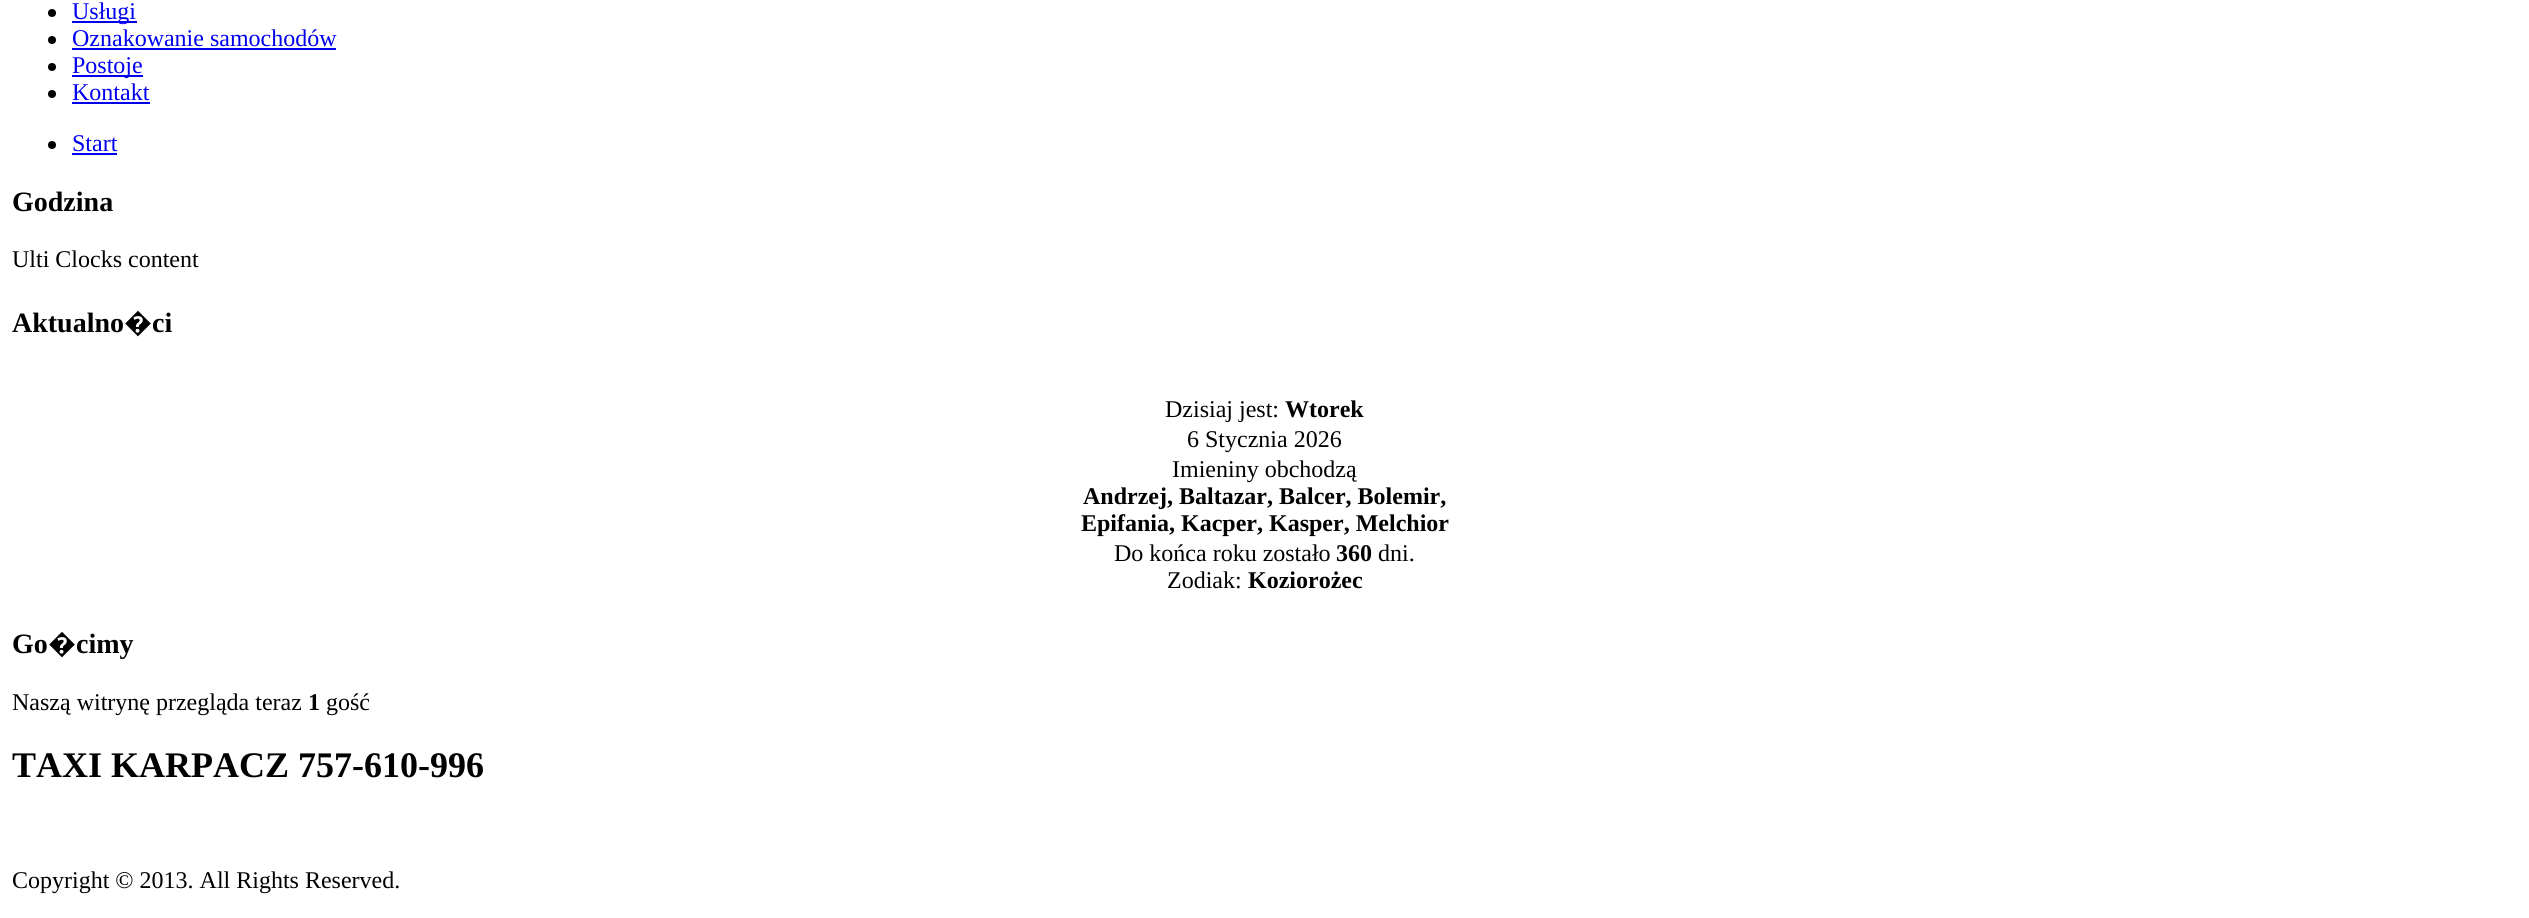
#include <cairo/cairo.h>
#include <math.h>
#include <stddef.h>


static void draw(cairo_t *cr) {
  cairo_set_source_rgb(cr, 1, 1, 1);
  cairo_paint(cr);
  cairo_set_source_rgb(cr, 0, 0, 0);
  cairo_arc(cr, 52, 13, 4, 0, 2 * M_PI);
  cairo_fill(cr);
  cairo_set_source_rgb(cr, 0, 0, 238 / 255.0);
  cairo_rectangle(cr, 72, 21, 65, 2);
  cairo_fill(cr);
  cairo_set_source_rgb(cr, 0, 0, 0);
  cairo_arc(cr, 52, 40, 4, 0, 2 * M_PI);
  cairo_fill(cr);
  cairo_set_source_rgb(cr, 0, 0, 238 / 255.0);
  cairo_rectangle(cr, 72, 48, 264, 2);
  cairo_fill(cr);
  cairo_set_source_rgb(cr, 0, 0, 0);
  cairo_arc(cr, 52, 67, 4, 0, 2 * M_PI);
  cairo_fill(cr);
  cairo_set_source_rgb(cr, 0, 0, 238 / 255.0);
  cairo_rectangle(cr, 72, 75, 71, 2);
  cairo_fill(cr);
  cairo_set_source_rgb(cr, 0, 0, 0);
  cairo_arc(cr, 52, 94, 4, 0, 2 * M_PI);
  cairo_fill(cr);
  cairo_set_source_rgb(cr, 0, 0, 238 / 255.0);
  cairo_rectangle(cr, 72, 102, 78, 2);
  cairo_fill(cr);
  cairo_set_source_rgb(cr, 0, 0, 0);
  cairo_arc(cr, 52, 145, 4, 0, 2 * M_PI);
  cairo_fill(cr);
  cairo_set_source_rgb(cr, 0, 0, 238 / 255.0);
  cairo_rectangle(cr, 72, 153, 45, 2);
  cairo_fill(cr);
  cairo_select_font_face(cr, "Liberation Serif", CAIRO_FONT_SLANT_NORMAL, CAIRO_FONT_WEIGHT_NORMAL);
  cairo_set_font_size(cr, 24);
  cairo_move_to(cr, 72, 19);
  cairo_show_text(cr, "Usługi");
  cairo_move_to(cr, 72, 46);
  cairo_show_text(cr, "Oznakowanie samochodów");
  cairo_move_to(cr, 72, 73);
  cairo_show_text(cr, "Postoje");
  cairo_move_to(cr, 72, 100);
  cairo_show_text(cr, "Kontakt");
  cairo_move_to(cr, 72, 151);
  cairo_show_text(cr, "Start");
  cairo_select_font_face(cr, "Liberation Serif", CAIRO_FONT_SLANT_NORMAL, CAIRO_FONT_WEIGHT_BOLD);
  cairo_set_font_size(cr, 28);
  cairo_set_source_rgb(cr, 0, 0, 0);
  cairo_move_to(cr, 12, 211);
  cairo_show_text(cr, "Godzina");
  cairo_select_font_face(cr, "Liberation Serif", CAIRO_FONT_SLANT_NORMAL, CAIRO_FONT_WEIGHT_NORMAL);
  cairo_set_font_size(cr, 24);
  cairo_move_to(cr, 12, 267);
  cairo_show_text(cr, "Ulti Clocks content");
  cairo_select_font_face(cr, "Liberation Serif", CAIRO_FONT_SLANT_NORMAL, CAIRO_FONT_WEIGHT_BOLD);
  cairo_set_font_size(cr, 28);
  cairo_move_to(cr, 12, 332);
  cairo_show_text(cr, "Aktualno");
  cairo_select_font_face(cr, "Noto Sans", CAIRO_FONT_SLANT_NORMAL, CAIRO_FONT_WEIGHT_BOLD);
  cairo_move_to(cr, 124, 332);
  cairo_show_text(cr, "�");
  cairo_select_font_face(cr, "Liberation Serif", CAIRO_FONT_SLANT_NORMAL, CAIRO_FONT_WEIGHT_BOLD);
  cairo_move_to(cr, 152, 332);
  cairo_show_text(cr, "ci");
  cairo_select_font_face(cr, "Liberation Serif", CAIRO_FONT_SLANT_NORMAL, CAIRO_FONT_WEIGHT_NORMAL);
  cairo_set_font_size(cr, 24);
  cairo_move_to(cr, 1165, 417);
  cairo_show_text(cr, "Dzisiaj jest:");
  cairo_select_font_face(cr, "Liberation Serif", CAIRO_FONT_SLANT_NORMAL, CAIRO_FONT_WEIGHT_BOLD);
  cairo_move_to(cr, 1285, 417);
  cairo_show_text(cr, "Wtorek");
  cairo_select_font_face(cr, "Liberation Serif", CAIRO_FONT_SLANT_NORMAL, CAIRO_FONT_WEIGHT_NORMAL);
  cairo_move_to(cr, 1187, 447);
  cairo_show_text(cr, "6 Stycznia 2026");
  cairo_move_to(cr, 1172, 477);
  cairo_show_text(cr, "Imieniny obchodzą");
  cairo_select_font_face(cr, "Liberation Serif", CAIRO_FONT_SLANT_NORMAL, CAIRO_FONT_WEIGHT_BOLD);
  cairo_move_to(cr, 1083, 504);
  cairo_show_text(cr, "Andrzej, Baltazar, Balcer, Bolemir,");
  cairo_move_to(cr, 1081, 531);
  cairo_show_text(cr, "Epifania, Kacper, Kasper, Melchior");
  cairo_select_font_face(cr, "Liberation Serif", CAIRO_FONT_SLANT_NORMAL, CAIRO_FONT_WEIGHT_NORMAL);
  cairo_move_to(cr, 1114, 561);
  cairo_show_text(cr, "Do końca roku zostało");
  cairo_select_font_face(cr, "Liberation Serif", CAIRO_FONT_SLANT_NORMAL, CAIRO_FONT_WEIGHT_BOLD);
  cairo_move_to(cr, 1336, 561);
  cairo_show_text(cr, "360");
  cairo_select_font_face(cr, "Liberation Serif", CAIRO_FONT_SLANT_NORMAL, CAIRO_FONT_WEIGHT_NORMAL);
  cairo_move_to(cr, 1378, 561);
  cairo_show_text(cr, "dni.");
  cairo_move_to(cr, 1167, 588);
  cairo_show_text(cr, "Zodiak:");
  cairo_select_font_face(cr, "Liberation Serif", CAIRO_FONT_SLANT_NORMAL, CAIRO_FONT_WEIGHT_BOLD);
  cairo_move_to(cr, 1248, 588);
  cairo_show_text(cr, "Koziorożec");
  cairo_set_font_size(cr, 28);
  cairo_move_to(cr, 12, 653);
  cairo_show_text(cr, "Go");
  cairo_select_font_face(cr, "Noto Sans", CAIRO_FONT_SLANT_NORMAL, CAIRO_FONT_WEIGHT_BOLD);
  cairo_move_to(cr, 48, 653);
  cairo_show_text(cr, "�");
  cairo_select_font_face(cr, "Liberation Serif", CAIRO_FONT_SLANT_NORMAL, CAIRO_FONT_WEIGHT_BOLD);
  cairo_move_to(cr, 76, 653);
  cairo_show_text(cr, "cimy");
  cairo_select_font_face(cr, "Liberation Serif", CAIRO_FONT_SLANT_NORMAL, CAIRO_FONT_WEIGHT_NORMAL);
  cairo_set_font_size(cr, 24);
  cairo_move_to(cr, 12, 710);
  cairo_show_text(cr, "Naszą witrynę przegląda teraz");
  cairo_select_font_face(cr, "Liberation Serif", CAIRO_FONT_SLANT_NORMAL, CAIRO_FONT_WEIGHT_BOLD);
  cairo_move_to(cr, 308, 710);
  cairo_show_text(cr, "1");
  cairo_select_font_face(cr, "Liberation Serif", CAIRO_FONT_SLANT_NORMAL, CAIRO_FONT_WEIGHT_NORMAL);
  cairo_move_to(cr, 326, 710);
  cairo_show_text(cr, "gość");
  cairo_select_font_face(cr, "Liberation Serif", CAIRO_FONT_SLANT_NORMAL, CAIRO_FONT_WEIGHT_BOLD);
  cairo_set_font_size(cr, 36);
  cairo_move_to(cr, 12, 777);
  cairo_show_text(cr, "TAXI KARPACZ 757-610-996");
  cairo_select_font_face(cr, "Liberation Serif", CAIRO_FONT_SLANT_NORMAL, CAIRO_FONT_WEIGHT_NORMAL);
  cairo_set_font_size(cr, 24);
  cairo_move_to(cr, 12, 888);
  cairo_show_text(cr, "Copyright © 2013. All Rights Reserved.");
}

int main(void) {
  cairo_surface_t *surface = cairo_image_surface_create(CAIRO_FORMAT_RGB24, 2529, 918);
  cairo_t *cr = cairo_create(surface);
  cairo_font_options_t *options = cairo_font_options_create();
  cairo_font_options_set_hint_metrics(options, CAIRO_HINT_METRICS_OFF);
  cairo_font_options_set_hint_style(options, CAIRO_HINT_STYLE_NONE);
  cairo_set_font_options(cr, options);
  cairo_set_miter_limit(cr, 4);
  draw(cr);
  cairo_surface_write_to_png(surface, "out.png");
  cairo_font_options_destroy(options);
  cairo_destroy(cr);
  cairo_surface_destroy(surface);
  return 0;
}
